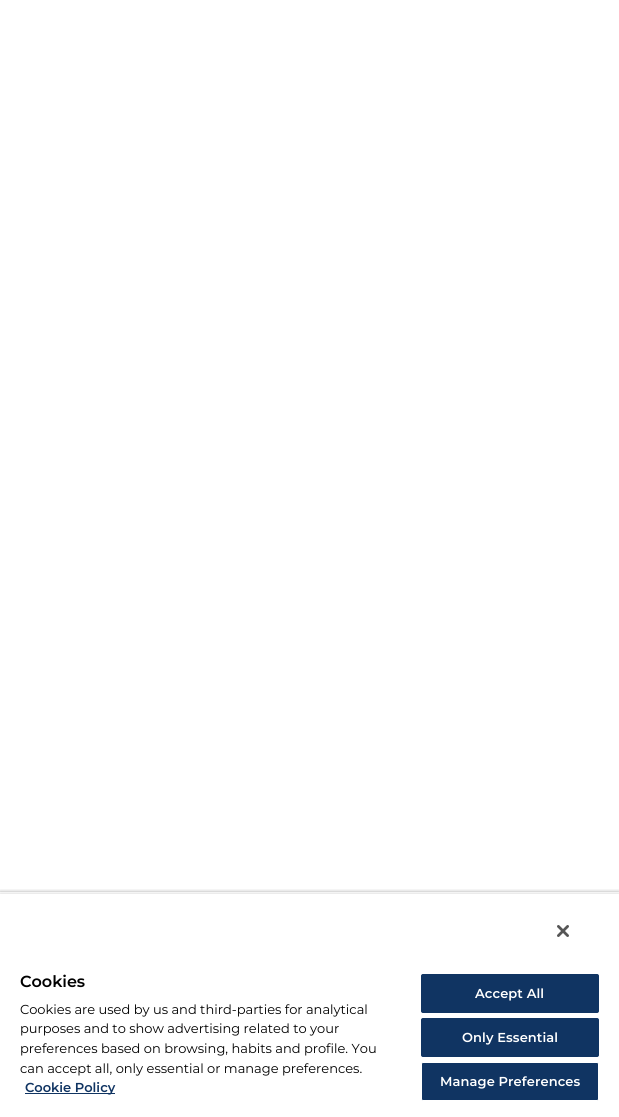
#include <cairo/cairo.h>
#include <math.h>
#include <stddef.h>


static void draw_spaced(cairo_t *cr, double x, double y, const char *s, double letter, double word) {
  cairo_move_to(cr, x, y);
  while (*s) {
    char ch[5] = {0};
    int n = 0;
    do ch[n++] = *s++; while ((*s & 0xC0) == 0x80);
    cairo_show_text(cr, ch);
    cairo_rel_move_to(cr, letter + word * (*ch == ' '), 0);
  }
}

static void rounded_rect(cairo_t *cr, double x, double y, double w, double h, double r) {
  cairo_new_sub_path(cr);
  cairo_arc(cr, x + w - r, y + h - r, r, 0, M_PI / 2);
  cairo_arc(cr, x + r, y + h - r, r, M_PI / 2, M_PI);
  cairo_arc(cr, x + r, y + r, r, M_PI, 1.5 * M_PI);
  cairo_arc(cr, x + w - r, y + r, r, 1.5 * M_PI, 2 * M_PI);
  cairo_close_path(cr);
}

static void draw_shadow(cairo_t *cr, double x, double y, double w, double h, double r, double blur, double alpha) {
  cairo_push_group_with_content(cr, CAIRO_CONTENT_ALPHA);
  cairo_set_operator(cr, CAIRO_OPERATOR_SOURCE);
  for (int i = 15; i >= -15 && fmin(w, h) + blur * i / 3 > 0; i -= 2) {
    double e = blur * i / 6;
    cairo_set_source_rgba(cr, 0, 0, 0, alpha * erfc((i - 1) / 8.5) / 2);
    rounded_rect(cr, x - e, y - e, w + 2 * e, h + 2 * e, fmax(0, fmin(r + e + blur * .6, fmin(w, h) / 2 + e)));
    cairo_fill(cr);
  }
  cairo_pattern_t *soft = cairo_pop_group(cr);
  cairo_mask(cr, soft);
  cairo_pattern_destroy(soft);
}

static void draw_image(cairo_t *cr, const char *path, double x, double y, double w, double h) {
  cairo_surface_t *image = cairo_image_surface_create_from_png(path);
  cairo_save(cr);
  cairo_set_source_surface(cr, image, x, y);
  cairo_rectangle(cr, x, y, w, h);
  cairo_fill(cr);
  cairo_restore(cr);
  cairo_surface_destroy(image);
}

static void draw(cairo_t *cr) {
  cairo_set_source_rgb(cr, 1, 1, 1);
  cairo_paint(cr);
  cairo_save(cr);
  cairo_rectangle(cr, 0, 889, 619, 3);
  cairo_clip(cr);
  cairo_set_source_rgb(cr, 0, 0, 0);
  draw_shadow(cr, 0, 892, 619, 225, 0, 2, 0.35);
  cairo_restore(cr);
  cairo_save(cr);
  cairo_rectangle(cr, 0, 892, 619, 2);
  cairo_clip(cr);
  cairo_set_source_rgb(cr, 0, 0, 0);
  draw_shadow(cr, 0, 894, 619, 223, 0, 2, 0.2);
  cairo_restore(cr);
  draw_image(cr, "images/1.png", 557, 925, 12, 12);
  cairo_set_source_rgb(cr, 16 / 255.0, 52 / 255.0, 98 / 255.0);
  cairo_rectangle(cr, 25, 1093, 90, 1);
  cairo_fill(cr);
  rounded_rect(cr, 421.5, 974.5, 177, 38, 1.5);
  cairo_fill_preserve(cr);
  cairo_set_line_width(cr, 1);
  cairo_stroke(cr);
  rounded_rect(cr, 421.5, 1018.5, 177, 38, 1.5);
  cairo_fill_preserve(cr);
  cairo_stroke(cr);
  rounded_rect(cr, 421.5, 1062.5, 177, 38, 1.5);
  cairo_fill_preserve(cr);
  cairo_set_source_rgb(cr, 1, 1, 1);
  cairo_stroke(cr);
  cairo_select_font_face(cr, "Montserrat SemiBold", CAIRO_FONT_SLANT_NORMAL, CAIRO_FONT_WEIGHT_NORMAL);
  cairo_set_font_size(cr, 16);
  cairo_set_source_rgb(cr, 0, 0, 0);
  cairo_move_to(cr, 20, 987);
  cairo_show_text(cr, "Cookies");
  cairo_select_font_face(cr, "Montserrat", CAIRO_FONT_SLANT_NORMAL, CAIRO_FONT_WEIGHT_NORMAL);
  cairo_set_font_size(cr, 13);
  cairo_move_to(cr, 20, 1014);
  cairo_show_text(cr, "Cookies are used by us and third-parties for analytical");
  cairo_move_to(cr, 20, 1033);
  cairo_show_text(cr, "purposes and to show advertising related to your");
  cairo_move_to(cr, 20, 1053);
  cairo_show_text(cr, "preferences based on browsing, habits and profile. You");
  cairo_move_to(cr, 20, 1073);
  cairo_show_text(cr, "can accept all, only essential or manage preferences.");
  cairo_select_font_face(cr, "Montserrat SemiBold", CAIRO_FONT_SLANT_NORMAL, CAIRO_FONT_WEIGHT_NORMAL);
  cairo_set_source_rgb(cr, 16 / 255.0, 52 / 255.0, 98 / 255.0);
  cairo_move_to(cr, 25, 1092);
  cairo_show_text(cr, "Cookie Policy");
  cairo_set_source_rgb(cr, 1, 1, 1);
  draw_spaced(cr, 475, 998, "Accept All", 0.1, 0);
  draw_spaced(cr, 462, 1042, "Only Essential", 0.1, 0);
  draw_spaced(cr, 440, 1086, "Manage Preferences", 0.1, 0);
}

int main(void) {
  cairo_surface_t *surface = cairo_image_surface_create(CAIRO_FORMAT_RGB24, 619, 1117);
  cairo_t *cr = cairo_create(surface);
  cairo_font_options_t *options = cairo_font_options_create();
  cairo_font_options_set_hint_metrics(options, CAIRO_HINT_METRICS_OFF);
  cairo_font_options_set_hint_style(options, CAIRO_HINT_STYLE_NONE);
  cairo_set_font_options(cr, options);
  cairo_set_miter_limit(cr, 4);
  draw(cr);
  cairo_surface_write_to_png(surface, "out.png");
  cairo_font_options_destroy(options);
  cairo_destroy(cr);
  cairo_surface_destroy(surface);
  return 0;
}
